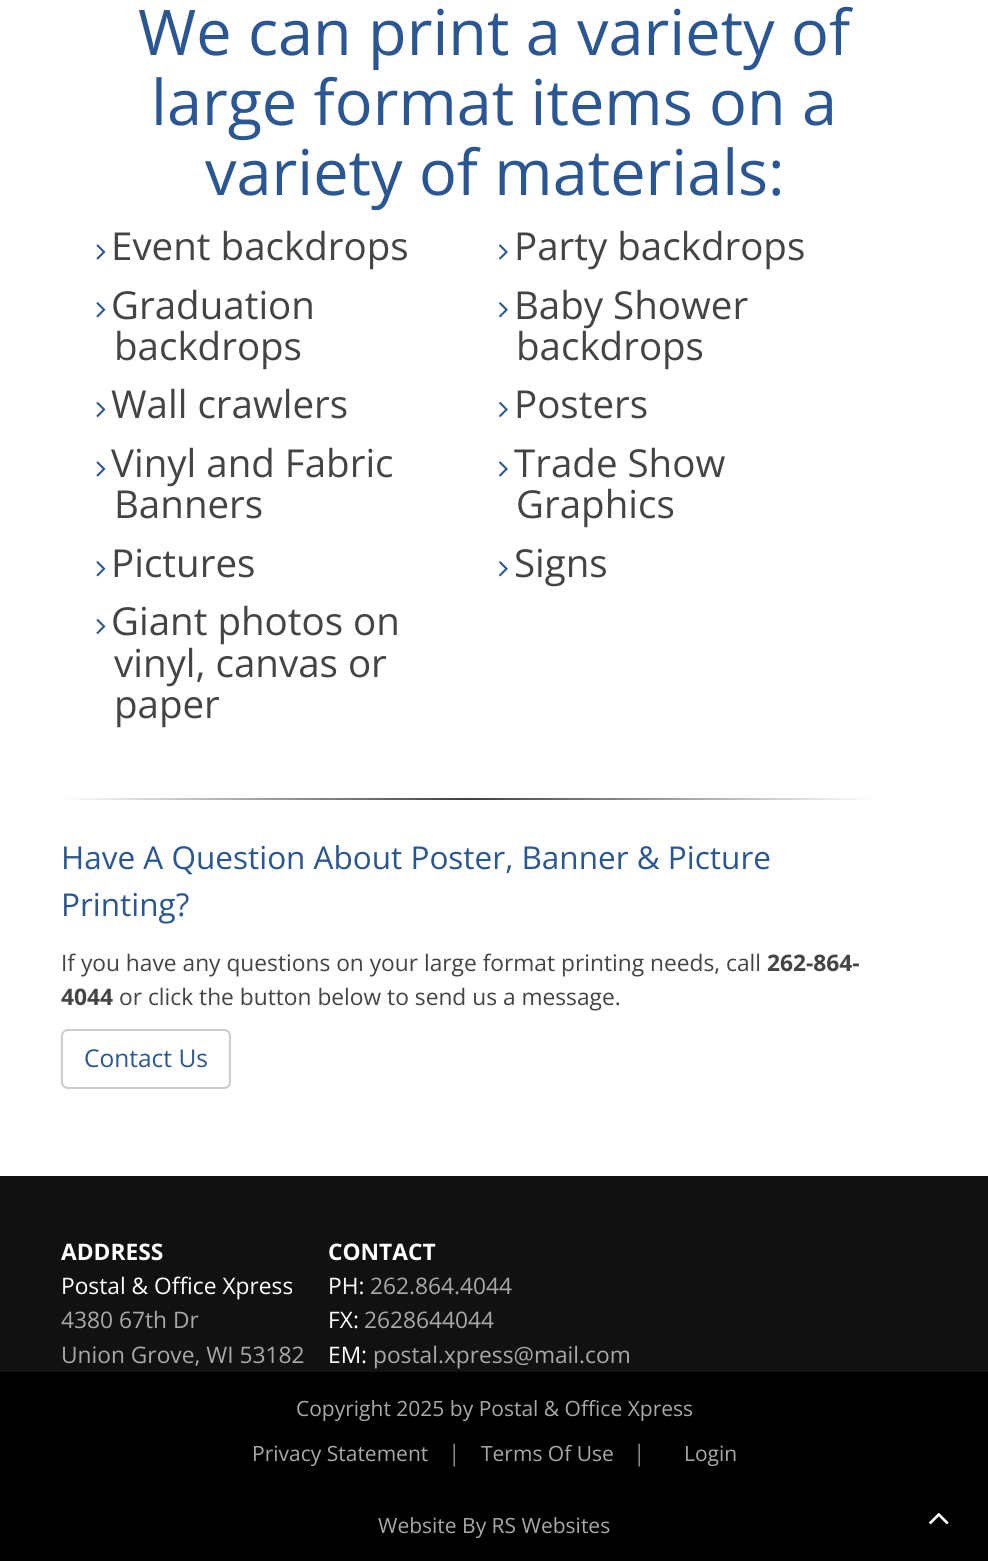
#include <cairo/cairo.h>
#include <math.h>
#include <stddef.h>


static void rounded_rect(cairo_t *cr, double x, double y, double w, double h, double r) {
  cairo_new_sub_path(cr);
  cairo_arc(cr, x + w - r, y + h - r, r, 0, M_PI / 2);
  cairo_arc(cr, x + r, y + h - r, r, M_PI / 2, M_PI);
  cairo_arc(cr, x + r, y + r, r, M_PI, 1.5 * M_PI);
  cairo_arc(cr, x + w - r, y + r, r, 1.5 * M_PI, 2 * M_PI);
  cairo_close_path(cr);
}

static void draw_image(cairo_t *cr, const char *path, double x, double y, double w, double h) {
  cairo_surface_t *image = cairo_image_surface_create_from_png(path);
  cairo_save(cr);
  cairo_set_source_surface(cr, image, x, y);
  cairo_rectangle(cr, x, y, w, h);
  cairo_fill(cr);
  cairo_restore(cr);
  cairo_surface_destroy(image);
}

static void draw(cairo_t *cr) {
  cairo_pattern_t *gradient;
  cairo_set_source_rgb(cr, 1, 1, 1);
  cairo_paint(cr);
  draw_image(cr, "images/1.png", 96, 244, 10, 16);
  draw_image(cr, "images/2.png", 499, 244, 9, 16);
  draw_image(cr, "images/3.png", 96, 302, 10, 16);
  draw_image(cr, "images/4.png", 499, 302, 9, 16);
  draw_image(cr, "images/5.png", 96, 401, 10, 16);
  draw_image(cr, "images/6.png", 499, 401, 9, 16);
  draw_image(cr, "images/7.png", 96, 461, 10, 16);
  draw_image(cr, "images/8.png", 499, 461, 9, 16);
  draw_image(cr, "images/3.png", 96, 561, 10, 16);
  draw_image(cr, "images/4.png", 499, 561, 9, 16);
  draw_image(cr, "images/5.png", 96, 618, 10, 16);
  gradient = cairo_pattern_create_linear(61, 799, 875, 799);
  cairo_pattern_add_color_stop_rgba(gradient, 0, 1, 1, 1, 1);
  cairo_pattern_add_color_stop_rgba(gradient, 0.5, 64 / 255.0, 64 / 255.0, 64 / 255.0, 1);
  cairo_pattern_add_color_stop_rgba(gradient, 1, 1, 1, 1, 1);
  cairo_set_source(cr, gradient);
  cairo_pattern_destroy(gradient);
  cairo_rectangle(cr, 61, 798, 814, 2);
  cairo_fill(cr);
  rounded_rect(cr, 62, 1030, 168, 58, 6);
  cairo_set_source_rgb(cr, 204 / 255.0, 204 / 255.0, 204 / 255.0);
  cairo_stroke(cr);
  cairo_set_source_rgb(cr, 17 / 255.0, 17 / 255.0, 17 / 255.0);
  cairo_rectangle(cr, 0, 1176, 988, 196);
  cairo_fill(cr);
  cairo_set_source_rgb(cr, 0, 0, 0);
  cairo_rectangle(cr, 0, 1372, 988, 189);
  cairo_fill(cr);
  draw_image(cr, "images/9.png", 929, 1512, 20, 13);
  cairo_select_font_face(cr, "Open Sans", CAIRO_FONT_SLANT_NORMAL, CAIRO_FONT_WEIGHT_NORMAL);
  cairo_set_font_size(cr, 63);
  cairo_set_source_rgb(cr, 42 / 255.0, 87 / 255.0, 148 / 255.0);
  cairo_move_to(cr, 138, 55);
  cairo_show_text(cr, "We can print a variety of");
  cairo_move_to(cr, 151, 125);
  cairo_show_text(cr, "large format items on a");
  cairo_move_to(cr, 205, 195);
  cairo_show_text(cr, "variety of materials:");
  cairo_set_font_size(cr, 38.5);
  cairo_set_source_rgb(cr, 68 / 255.0, 68 / 255.0, 68 / 255.0);
  cairo_move_to(cr, 111, 260);
  cairo_show_text(cr, "Event backdrops");
  cairo_move_to(cr, 514, 260);
  cairo_show_text(cr, "Party backdrops");
  cairo_move_to(cr, 111, 319);
  cairo_show_text(cr, "Graduation");
  cairo_move_to(cr, 114, 360);
  cairo_show_text(cr, "backdrops");
  cairo_move_to(cr, 514, 319);
  cairo_show_text(cr, "Baby Shower");
  cairo_move_to(cr, 516, 360);
  cairo_show_text(cr, "backdrops");
  cairo_move_to(cr, 111, 418);
  cairo_show_text(cr, "Wall crawlers");
  cairo_move_to(cr, 514, 418);
  cairo_show_text(cr, "Posters");
  cairo_move_to(cr, 111, 477);
  cairo_show_text(cr, "Vinyl and Fabric");
  cairo_move_to(cr, 114, 518);
  cairo_show_text(cr, "Banners");
  cairo_move_to(cr, 514, 477);
  cairo_show_text(cr, "Trade Show");
  cairo_move_to(cr, 516, 518);
  cairo_show_text(cr, "Graphics");
  cairo_move_to(cr, 111, 577);
  cairo_show_text(cr, "Pictures");
  cairo_move_to(cr, 514, 577);
  cairo_show_text(cr, "Signs");
  cairo_move_to(cr, 111, 635);
  cairo_show_text(cr, "Giant photos on");
  cairo_move_to(cr, 114, 677);
  cairo_show_text(cr, "vinyl, canvas or");
  cairo_move_to(cr, 114, 718);
  cairo_show_text(cr, "paper");
  cairo_set_font_size(cr, 31.5);
  cairo_set_source_rgb(cr, 42 / 255.0, 87 / 255.0, 148 / 255.0);
  cairo_move_to(cr, 61, 869);
  cairo_show_text(cr, "Have A Question About Poster, Banner & Picture");
  cairo_move_to(cr, 61, 916);
  cairo_show_text(cr, "Printing?");
  cairo_set_font_size(cr, 22.75);
  cairo_set_source_rgb(cr, 68 / 255.0, 68 / 255.0, 68 / 255.0);
  cairo_move_to(cr, 61, 971);
  cairo_show_text(cr, "If you have any questions on your large format printing needs, call");
  cairo_select_font_face(cr, "Open Sans", CAIRO_FONT_SLANT_NORMAL, CAIRO_FONT_WEIGHT_BOLD);
  cairo_move_to(cr, 767, 971);
  cairo_show_text(cr, "262-864-");
  cairo_move_to(cr, 61, 1005);
  cairo_show_text(cr, "4044");
  cairo_select_font_face(cr, "Open Sans", CAIRO_FONT_SLANT_NORMAL, CAIRO_FONT_WEIGHT_NORMAL);
  cairo_move_to(cr, 119, 1005);
  cairo_show_text(cr, "or click the button below to send us a message.");
  cairo_set_font_size(cr, 24.5);
  cairo_set_source_rgb(cr, 42 / 255.0, 87 / 255.0, 148 / 255.0);
  cairo_move_to(cr, 84, 1067);
  cairo_show_text(cr, "Contact Us");
  cairo_select_font_face(cr, "Open Sans", CAIRO_FONT_SLANT_NORMAL, CAIRO_FONT_WEIGHT_BOLD);
  cairo_set_font_size(cr, 22.75);
  cairo_set_source_rgb(cr, 1, 1, 1);
  cairo_move_to(cr, 61, 1260);
  cairo_show_text(cr, "ADDRESS");
  cairo_select_font_face(cr, "Open Sans", CAIRO_FONT_SLANT_NORMAL, CAIRO_FONT_WEIGHT_NORMAL);
  cairo_move_to(cr, 61, 1294);
  cairo_show_text(cr, "Postal & Office Xpress");
  cairo_set_source_rgb(cr, 168 / 255.0, 168 / 255.0, 168 / 255.0);
  cairo_move_to(cr, 61, 1328);
  cairo_show_text(cr, "4380 67th Dr");
  cairo_move_to(cr, 61, 1363);
  cairo_show_text(cr, "Union Grove, WI 53182");
  cairo_select_font_face(cr, "Open Sans", CAIRO_FONT_SLANT_NORMAL, CAIRO_FONT_WEIGHT_BOLD);
  cairo_set_source_rgb(cr, 1, 1, 1);
  cairo_move_to(cr, 328, 1260);
  cairo_show_text(cr, "CONTACT");
  cairo_select_font_face(cr, "Open Sans", CAIRO_FONT_SLANT_NORMAL, CAIRO_FONT_WEIGHT_NORMAL);
  cairo_move_to(cr, 328, 1294);
  cairo_show_text(cr, "PH:");
  cairo_set_source_rgb(cr, 168 / 255.0, 168 / 255.0, 168 / 255.0);
  cairo_move_to(cr, 370, 1294);
  cairo_show_text(cr, "262.864.4044");
  cairo_set_source_rgb(cr, 1, 1, 1);
  cairo_move_to(cr, 328, 1328);
  cairo_show_text(cr, "FX:");
  cairo_set_source_rgb(cr, 168 / 255.0, 168 / 255.0, 168 / 255.0);
  cairo_move_to(cr, 364, 1328);
  cairo_show_text(cr, "2628644044");
  cairo_set_source_rgb(cr, 1, 1, 1);
  cairo_move_to(cr, 328, 1363);
  cairo_show_text(cr, "EM:");
  cairo_set_source_rgb(cr, 168 / 255.0, 168 / 255.0, 168 / 255.0);
  cairo_move_to(cr, 373, 1363);
  cairo_show_text(cr, "postal.xpress@mail.com");
  cairo_set_font_size(cr, 21);
  cairo_move_to(cr, 296, 1416);
  cairo_show_text(cr, "Copyright 2025 by Postal & Office Xpress");
  cairo_move_to(cr, 252, 1461);
  cairo_show_text(cr, "Privacy Statement");
  cairo_set_font_size(cr, 22.75);
  cairo_set_source_rgb(cr, 138 / 255.0, 138 / 255.0, 138 / 255.0);
  cairo_move_to(cr, 448, 1461);
  cairo_show_text(cr, "|");
  cairo_set_font_size(cr, 21);
  cairo_set_source_rgb(cr, 168 / 255.0, 168 / 255.0, 168 / 255.0);
  cairo_move_to(cr, 481, 1461);
  cairo_show_text(cr, "Terms Of Use");
  cairo_set_font_size(cr, 22.75);
  cairo_set_source_rgb(cr, 138 / 255.0, 138 / 255.0, 138 / 255.0);
  cairo_move_to(cr, 633, 1461);
  cairo_show_text(cr, "|");
  cairo_set_font_size(cr, 21);
  cairo_set_source_rgb(cr, 168 / 255.0, 168 / 255.0, 168 / 255.0);
  cairo_move_to(cr, 684, 1461);
  cairo_show_text(cr, "Login");
  cairo_move_to(cr, 378, 1533);
  cairo_show_text(cr, "Website By RS Websites");
}

int main(void) {
  cairo_surface_t *surface = cairo_image_surface_create(CAIRO_FORMAT_RGB24, 988, 1561);
  cairo_t *cr = cairo_create(surface);
  cairo_font_options_t *options = cairo_font_options_create();
  cairo_font_options_set_hint_metrics(options, CAIRO_HINT_METRICS_OFF);
  cairo_font_options_set_hint_style(options, CAIRO_HINT_STYLE_NONE);
  cairo_set_font_options(cr, options);
  cairo_set_miter_limit(cr, 4);
  draw(cr);
  cairo_surface_write_to_png(surface, "out.png");
  cairo_font_options_destroy(options);
  cairo_destroy(cr);
  cairo_surface_destroy(surface);
  return 0;
}
